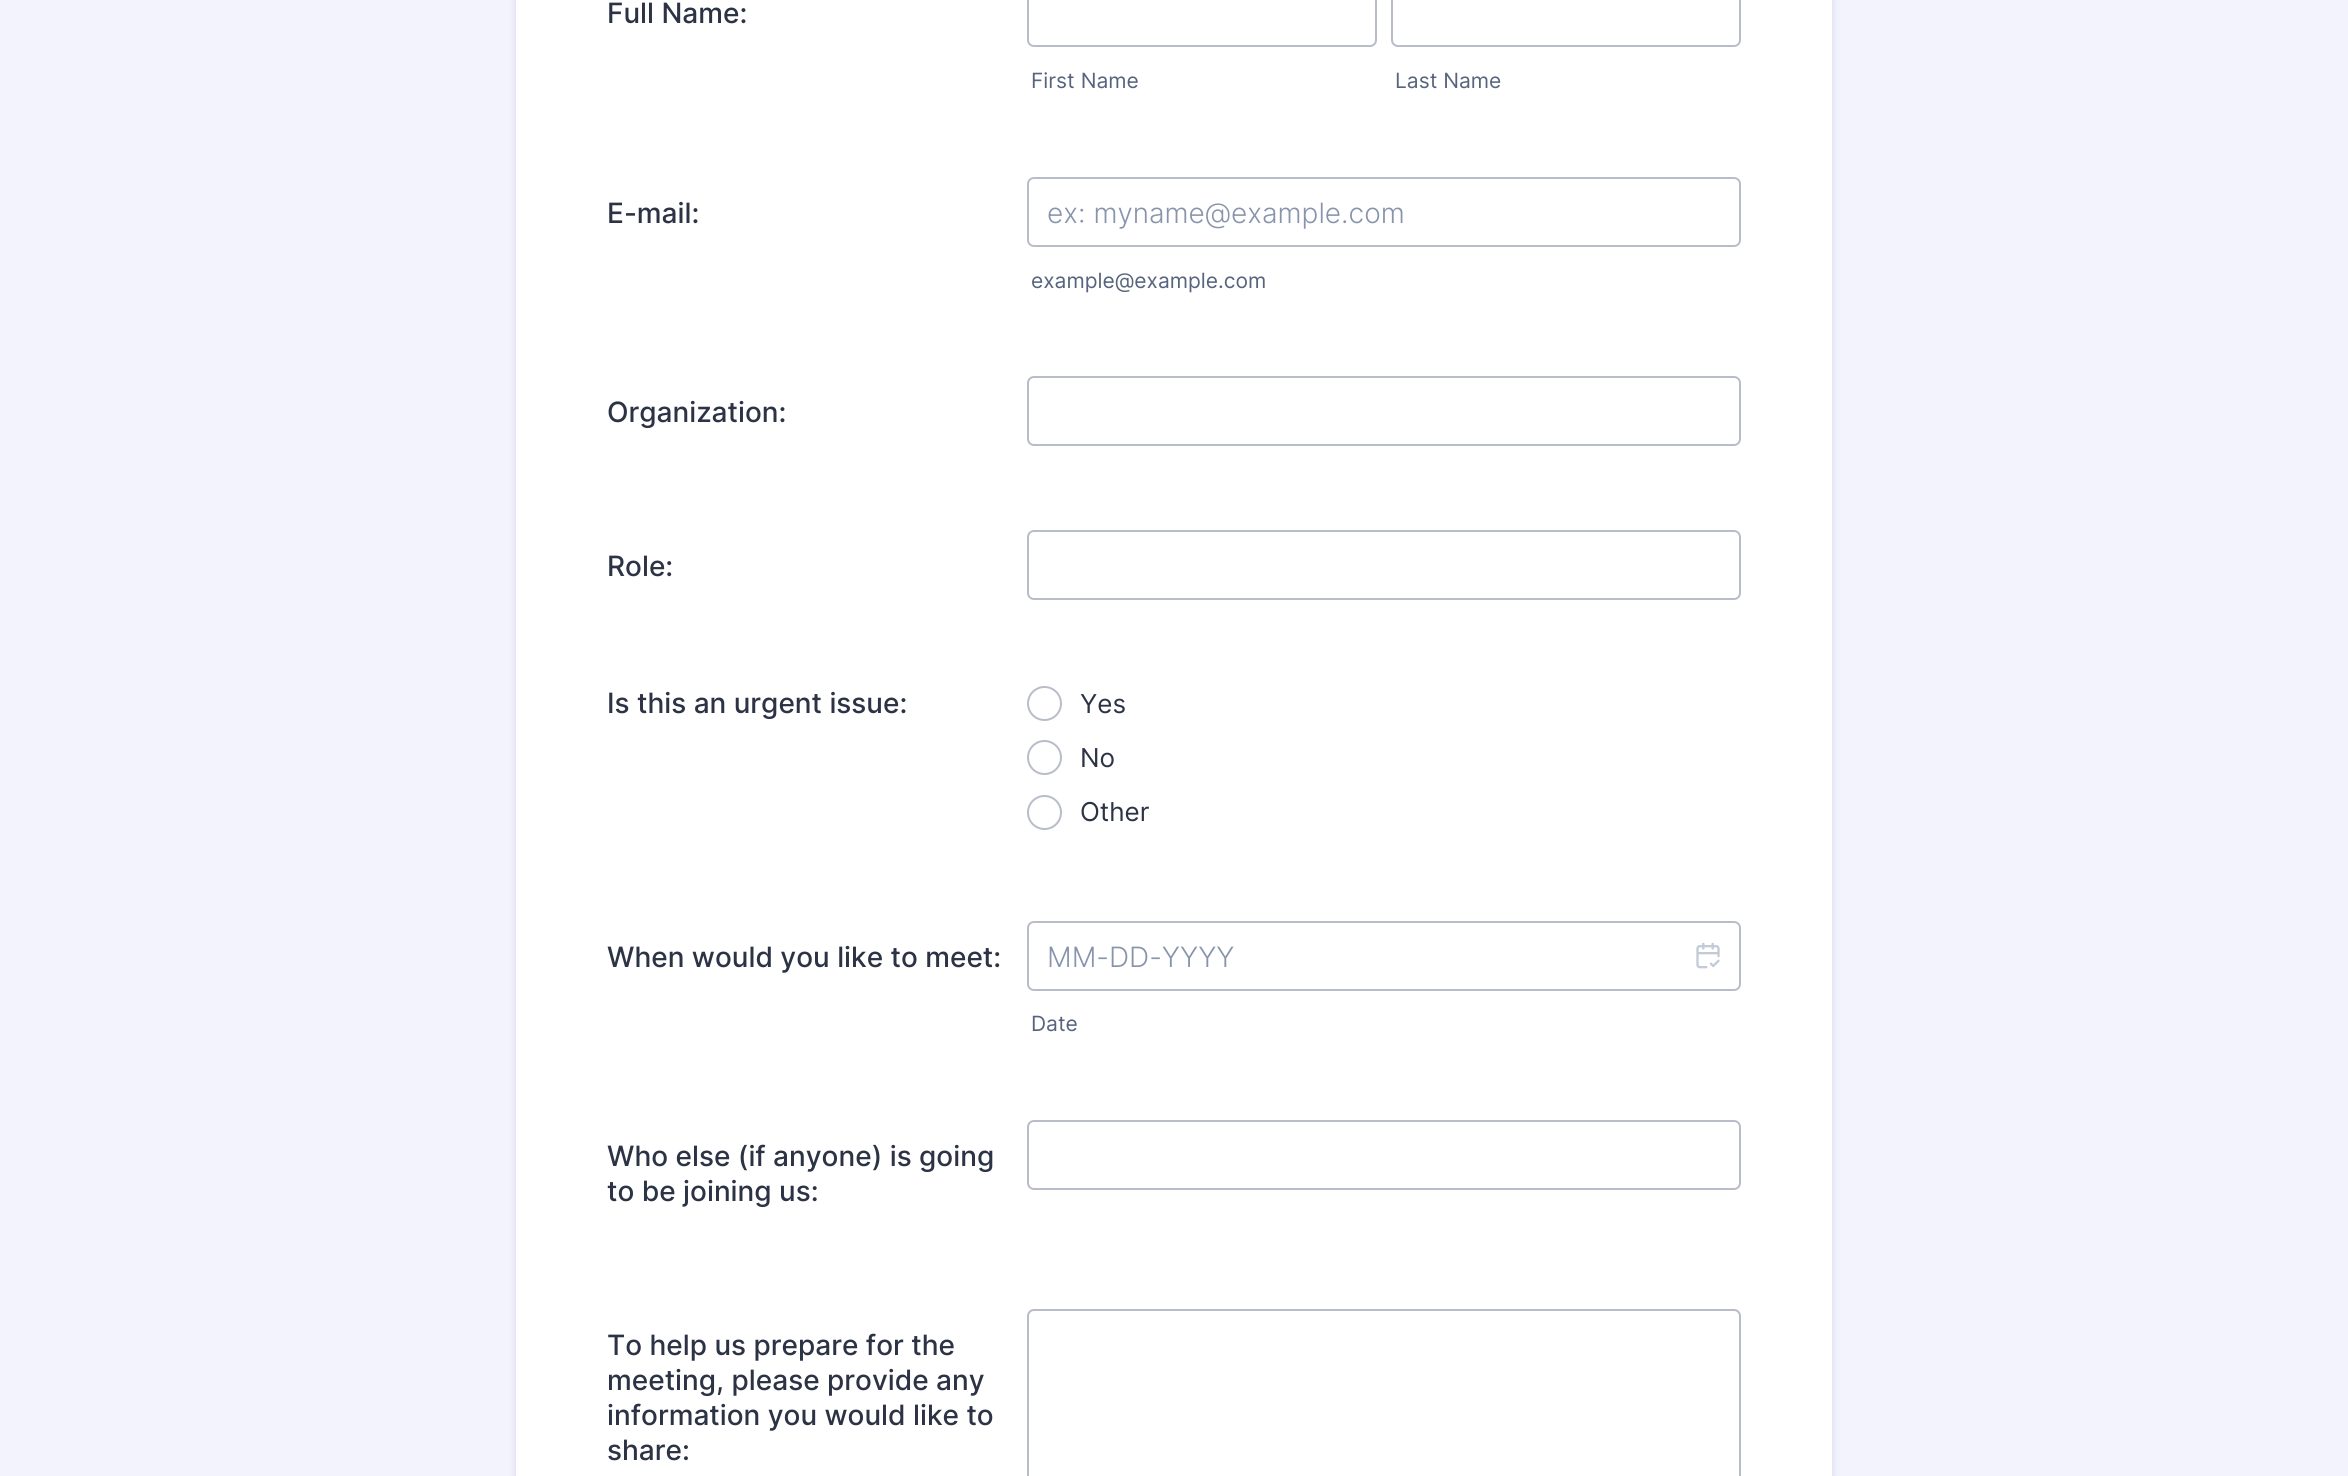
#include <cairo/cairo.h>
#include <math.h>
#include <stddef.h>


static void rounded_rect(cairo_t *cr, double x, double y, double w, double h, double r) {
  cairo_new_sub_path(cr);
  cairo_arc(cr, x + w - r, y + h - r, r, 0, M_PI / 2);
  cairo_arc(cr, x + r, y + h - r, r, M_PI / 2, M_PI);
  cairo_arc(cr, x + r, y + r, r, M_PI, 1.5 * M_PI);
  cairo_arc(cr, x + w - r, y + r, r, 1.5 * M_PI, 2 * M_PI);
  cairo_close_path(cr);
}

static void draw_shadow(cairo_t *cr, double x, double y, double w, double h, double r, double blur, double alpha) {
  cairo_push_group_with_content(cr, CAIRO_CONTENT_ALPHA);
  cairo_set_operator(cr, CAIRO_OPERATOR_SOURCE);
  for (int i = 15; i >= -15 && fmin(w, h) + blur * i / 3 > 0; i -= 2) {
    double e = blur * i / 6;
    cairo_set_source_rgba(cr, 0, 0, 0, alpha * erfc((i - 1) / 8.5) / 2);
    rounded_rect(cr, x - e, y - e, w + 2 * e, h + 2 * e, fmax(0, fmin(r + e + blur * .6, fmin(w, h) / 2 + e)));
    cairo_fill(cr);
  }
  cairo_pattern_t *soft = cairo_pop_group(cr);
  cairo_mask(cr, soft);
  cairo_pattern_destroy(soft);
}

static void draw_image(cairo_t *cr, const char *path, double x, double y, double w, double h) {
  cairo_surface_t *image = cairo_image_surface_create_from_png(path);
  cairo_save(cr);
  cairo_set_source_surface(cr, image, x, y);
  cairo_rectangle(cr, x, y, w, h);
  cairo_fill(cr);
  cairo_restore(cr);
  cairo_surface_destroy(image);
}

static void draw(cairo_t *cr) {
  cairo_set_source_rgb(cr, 243 / 255.0, 243 / 255.0, 254 / 255.0);
  cairo_paint(cr);
  cairo_set_source_rgb(cr, 87 / 255.0, 100 / 255.0, 126 / 255.0);
  draw_shadow(cr, 516, -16, 1316, 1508, 5, 3.5, 0.21);
  cairo_set_source_rgb(cr, 1, 1, 1);
  cairo_rectangle(cr, 516, 0, 1316, 1476);
  cairo_fill(cr);
  rounded_rect(cr, 1028, -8, 348, 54, 6);
  cairo_set_source_rgb(cr, 184 / 255.0, 189 / 255.0, 201 / 255.0);
  cairo_stroke(cr);
  rounded_rect(cr, 1392, -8, 348, 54, 6);
  cairo_stroke(cr);
  rounded_rect(cr, 1028, 178, 712, 68, 6);
  cairo_stroke(cr);
  rounded_rect(cr, 1028, 377, 712, 68, 6);
  cairo_stroke(cr);
  rounded_rect(cr, 1028, 531, 712, 68, 6);
  cairo_stroke(cr);
  cairo_arc(cr, 1044.5, 703.5, 16.5, 0, 2 * M_PI);
  cairo_stroke(cr);
  cairo_arc(cr, 1044.5, 757.5, 16.5, 0, 2 * M_PI);
  cairo_stroke(cr);
  cairo_arc(cr, 1044.5, 812.5, 16.5, 0, 2 * M_PI);
  cairo_stroke(cr);
  draw_image(cr, "images/1.png", 1696, 942, 24, 27);
  rounded_rect(cr, 1028, 922, 712, 68, 6);
  cairo_stroke(cr);
  rounded_rect(cr, 1028, 1121, 712, 68, 6);
  cairo_stroke(cr);
  rounded_rect(cr, 1028, 1310, 712, 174, 6);
  cairo_stroke(cr);
  cairo_select_font_face(cr, "Inter Medium", CAIRO_FONT_SLANT_NORMAL, CAIRO_FONT_WEIGHT_NORMAL);
  cairo_set_font_size(cr, 28);
  cairo_set_source_rgb(cr, 44 / 255.0, 51 / 255.0, 69 / 255.0);
  cairo_move_to(cr, 607, 23);
  cairo_show_text(cr, "Full Name:");
  cairo_select_font_face(cr, "Inter", CAIRO_FONT_SLANT_NORMAL, CAIRO_FONT_WEIGHT_NORMAL);
  cairo_set_font_size(cr, 21);
  cairo_set_source_rgb(cr, 87 / 255.0, 100 / 255.0, 126 / 255.0);
  cairo_move_to(cr, 1031, 88);
  cairo_show_text(cr, "First Name");
  cairo_move_to(cr, 1395, 88);
  cairo_show_text(cr, "Last Name");
  cairo_select_font_face(cr, "Inter Medium", CAIRO_FONT_SLANT_NORMAL, CAIRO_FONT_WEIGHT_NORMAL);
  cairo_set_font_size(cr, 28);
  cairo_set_source_rgb(cr, 44 / 255.0, 51 / 255.0, 69 / 255.0);
  cairo_move_to(cr, 607, 223);
  cairo_show_text(cr, "E-mail:");
  cairo_select_font_face(cr, "Inter Light", CAIRO_FONT_SLANT_NORMAL, CAIRO_FONT_WEIGHT_NORMAL);
  cairo_set_source_rgb(cr, 136 / 255.0, 148 / 255.0, 171 / 255.0);
  cairo_move_to(cr, 1047, 223);
  cairo_show_text(cr, "ex: myname@example.com");
  cairo_select_font_face(cr, "Inter", CAIRO_FONT_SLANT_NORMAL, CAIRO_FONT_WEIGHT_NORMAL);
  cairo_set_font_size(cr, 21);
  cairo_set_source_rgb(cr, 87 / 255.0, 100 / 255.0, 126 / 255.0);
  cairo_move_to(cr, 1031, 288);
  cairo_show_text(cr, "example@example.com");
  cairo_select_font_face(cr, "Inter Medium", CAIRO_FONT_SLANT_NORMAL, CAIRO_FONT_WEIGHT_NORMAL);
  cairo_set_font_size(cr, 28);
  cairo_set_source_rgb(cr, 44 / 255.0, 51 / 255.0, 69 / 255.0);
  cairo_move_to(cr, 607, 422);
  cairo_show_text(cr, "Organization:");
  cairo_move_to(cr, 607, 576);
  cairo_show_text(cr, "Role:");
  cairo_move_to(cr, 607, 713);
  cairo_show_text(cr, "Is this an urgent issue:");
  cairo_select_font_face(cr, "Inter", CAIRO_FONT_SLANT_NORMAL, CAIRO_FONT_WEIGHT_NORMAL);
  cairo_set_font_size(cr, 26);
  cairo_move_to(cr, 1080, 713);
  cairo_show_text(cr, "Yes");
  cairo_move_to(cr, 1080, 767);
  cairo_show_text(cr, "No");
  cairo_move_to(cr, 1080, 821);
  cairo_show_text(cr, "Other");
  cairo_select_font_face(cr, "Inter Medium", CAIRO_FONT_SLANT_NORMAL, CAIRO_FONT_WEIGHT_NORMAL);
  cairo_set_font_size(cr, 28);
  cairo_move_to(cr, 607, 967);
  cairo_show_text(cr, "When would you like to meet:");
  cairo_select_font_face(cr, "Inter Light", CAIRO_FONT_SLANT_NORMAL, CAIRO_FONT_WEIGHT_NORMAL);
  cairo_set_source_rgb(cr, 136 / 255.0, 148 / 255.0, 171 / 255.0);
  cairo_move_to(cr, 1047, 967);
  cairo_show_text(cr, "MM-DD-YYYY");
  cairo_select_font_face(cr, "Inter", CAIRO_FONT_SLANT_NORMAL, CAIRO_FONT_WEIGHT_NORMAL);
  cairo_set_font_size(cr, 21);
  cairo_set_source_rgb(cr, 87 / 255.0, 100 / 255.0, 126 / 255.0);
  cairo_move_to(cr, 1031, 1031);
  cairo_show_text(cr, "Date");
  cairo_select_font_face(cr, "Inter Medium", CAIRO_FONT_SLANT_NORMAL, CAIRO_FONT_WEIGHT_NORMAL);
  cairo_set_font_size(cr, 28);
  cairo_set_source_rgb(cr, 44 / 255.0, 51 / 255.0, 69 / 255.0);
  cairo_move_to(cr, 607, 1166);
  cairo_show_text(cr, "Who else (if anyone) is going");
  cairo_move_to(cr, 607, 1201);
  cairo_show_text(cr, "to be joining us:");
  cairo_move_to(cr, 607, 1355);
  cairo_show_text(cr, "To help us prepare for the");
  cairo_move_to(cr, 607, 1390);
  cairo_show_text(cr, "meeting, please provide any");
  cairo_move_to(cr, 607, 1425);
  cairo_show_text(cr, "information you would like to");
  cairo_move_to(cr, 607, 1460);
  cairo_show_text(cr, "share:");
}

int main(void) {
  cairo_surface_t *surface = cairo_image_surface_create(CAIRO_FORMAT_RGB24, 2348, 1476);
  cairo_t *cr = cairo_create(surface);
  cairo_font_options_t *options = cairo_font_options_create();
  cairo_font_options_set_hint_metrics(options, CAIRO_HINT_METRICS_OFF);
  cairo_font_options_set_hint_style(options, CAIRO_HINT_STYLE_NONE);
  cairo_set_font_options(cr, options);
  cairo_set_miter_limit(cr, 4);
  draw(cr);
  cairo_surface_write_to_png(surface, "out.png");
  cairo_font_options_destroy(options);
  cairo_destroy(cr);
  cairo_surface_destroy(surface);
  return 0;
}
